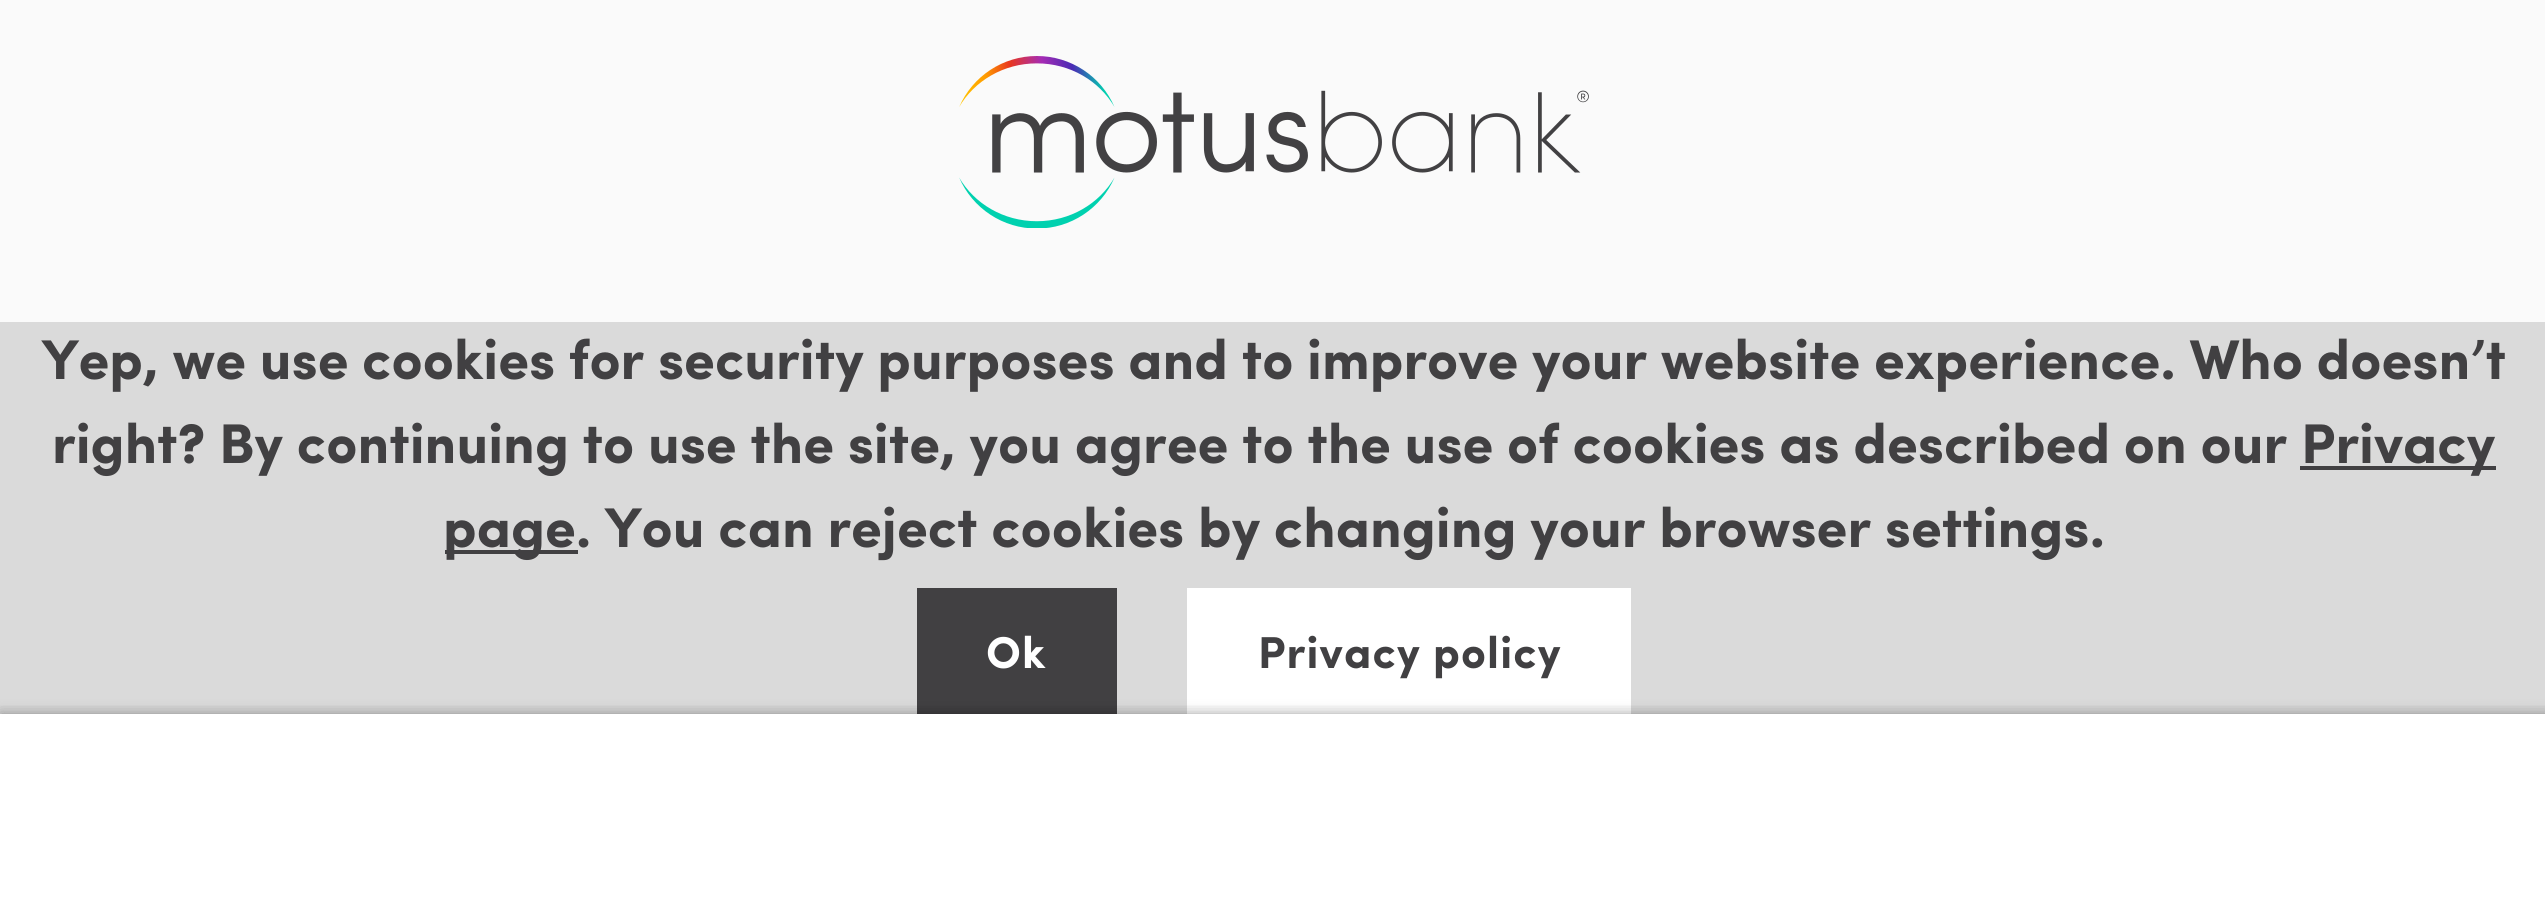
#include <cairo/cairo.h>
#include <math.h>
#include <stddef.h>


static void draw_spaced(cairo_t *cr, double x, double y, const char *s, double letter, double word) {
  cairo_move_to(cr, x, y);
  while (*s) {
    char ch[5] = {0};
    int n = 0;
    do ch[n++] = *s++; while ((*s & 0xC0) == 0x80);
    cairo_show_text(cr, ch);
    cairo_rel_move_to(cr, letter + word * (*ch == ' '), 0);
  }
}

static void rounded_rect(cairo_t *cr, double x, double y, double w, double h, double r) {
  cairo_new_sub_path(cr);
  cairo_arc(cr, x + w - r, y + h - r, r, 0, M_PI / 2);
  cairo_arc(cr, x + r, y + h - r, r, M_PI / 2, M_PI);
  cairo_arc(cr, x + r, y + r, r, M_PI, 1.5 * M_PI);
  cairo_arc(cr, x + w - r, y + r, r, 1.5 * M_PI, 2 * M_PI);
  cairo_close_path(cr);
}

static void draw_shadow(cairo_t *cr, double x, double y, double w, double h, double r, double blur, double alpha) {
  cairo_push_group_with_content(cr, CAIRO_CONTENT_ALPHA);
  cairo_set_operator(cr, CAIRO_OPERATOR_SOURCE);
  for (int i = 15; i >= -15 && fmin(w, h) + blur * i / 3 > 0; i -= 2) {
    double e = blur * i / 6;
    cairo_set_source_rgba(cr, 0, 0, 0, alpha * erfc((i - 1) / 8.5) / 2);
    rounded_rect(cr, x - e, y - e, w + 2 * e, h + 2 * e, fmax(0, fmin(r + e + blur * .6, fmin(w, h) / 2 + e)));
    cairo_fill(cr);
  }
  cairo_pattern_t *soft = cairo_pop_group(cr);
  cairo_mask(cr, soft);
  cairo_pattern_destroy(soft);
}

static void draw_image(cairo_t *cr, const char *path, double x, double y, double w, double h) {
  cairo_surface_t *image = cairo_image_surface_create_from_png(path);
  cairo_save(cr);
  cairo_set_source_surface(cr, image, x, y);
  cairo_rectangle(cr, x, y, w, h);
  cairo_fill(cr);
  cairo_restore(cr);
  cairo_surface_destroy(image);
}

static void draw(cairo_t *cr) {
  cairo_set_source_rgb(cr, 250 / 255.0, 250 / 255.0, 250 / 255.0);
  cairo_paint(cr);
  draw_image(cr, "images/1.png", 959, 56, 630, 172);
  cairo_set_source_rgb(cr, 218 / 255.0, 218 / 255.0, 218 / 255.0);
  cairo_rectangle(cr, 0, 322, 2545, 392);
  cairo_fill(cr);
  cairo_set_source_rgb(cr, 65 / 255.0, 64 / 255.0, 66 / 255.0);
  cairo_rectangle(cr, 2300, 466, 196, 4);
  cairo_fill(cr);
  cairo_rectangle(cr, 445, 550, 133, 4);
  cairo_fill(cr);
  cairo_rectangle(cr, 917, 588, 200, 126);
  cairo_fill(cr);
  cairo_set_source_rgb(cr, 1, 1, 1);
  cairo_rectangle(cr, 1187, 588, 444, 126);
  cairo_fill(cr);
  cairo_set_source_rgb(cr, 0, 0, 0);
  draw_shadow(cr, 0, 714, 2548, 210, 0, 7, 0.2);
  cairo_set_source_rgb(cr, 1, 1, 1);
  cairo_rectangle(cr, 0, 714, 2545, 209);
  cairo_fill(cr);
  cairo_save(cr);
  cairo_rectangle(cr, 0, 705, 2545, 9);
  cairo_clip(cr);
  cairo_set_source_rgb(cr, 0, 0, 0);
  draw_shadow(cr, 0, 714, 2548, 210, 0, 7, 0.2);
  cairo_restore(cr);
  cairo_select_font_face(cr, "Sofia", CAIRO_FONT_SLANT_NORMAL, CAIRO_FONT_WEIGHT_BOLD);
  cairo_set_font_size(cr, 56);
  cairo_set_source_rgb(cr, 65 / 255.0, 64 / 255.0, 66 / 255.0);
  cairo_move_to(cr, 42, 379);
  cairo_show_text(cr, "Yep, we use cookies for security purposes and to improve your website experience. Who doesn’t");
  cairo_move_to(cr, 52, 463);
  cairo_show_text(cr, "right? By continuing to use the site, you agree to the use of cookies as described on our");
  cairo_move_to(cr, 2301, 463);
  cairo_show_text(cr, "Privacy");
  cairo_move_to(cr, 443, 547);
  cairo_show_text(cr, "page. You can reject cookies by changing your browser settings.");
  cairo_set_font_size(cr, 44.75);
  cairo_set_source_rgb(cr, 1, 1, 1);
  draw_spaced(cr, 986, 668, "Ok", 1.1, 0);
  cairo_set_source_rgb(cr, 65 / 255.0, 64 / 255.0, 66 / 255.0);
  draw_spaced(cr, 1258, 668, "Privacy policy", 1.1, 0);
}

int main(void) {
  cairo_surface_t *surface = cairo_image_surface_create(CAIRO_FORMAT_RGB24, 2545, 923);
  cairo_t *cr = cairo_create(surface);
  cairo_font_options_t *options = cairo_font_options_create();
  cairo_font_options_set_hint_metrics(options, CAIRO_HINT_METRICS_OFF);
  cairo_font_options_set_hint_style(options, CAIRO_HINT_STYLE_NONE);
  cairo_set_font_options(cr, options);
  cairo_set_miter_limit(cr, 4);
  draw(cr);
  cairo_surface_write_to_png(surface, "out.png");
  cairo_font_options_destroy(options);
  cairo_destroy(cr);
  cairo_surface_destroy(surface);
  return 0;
}
